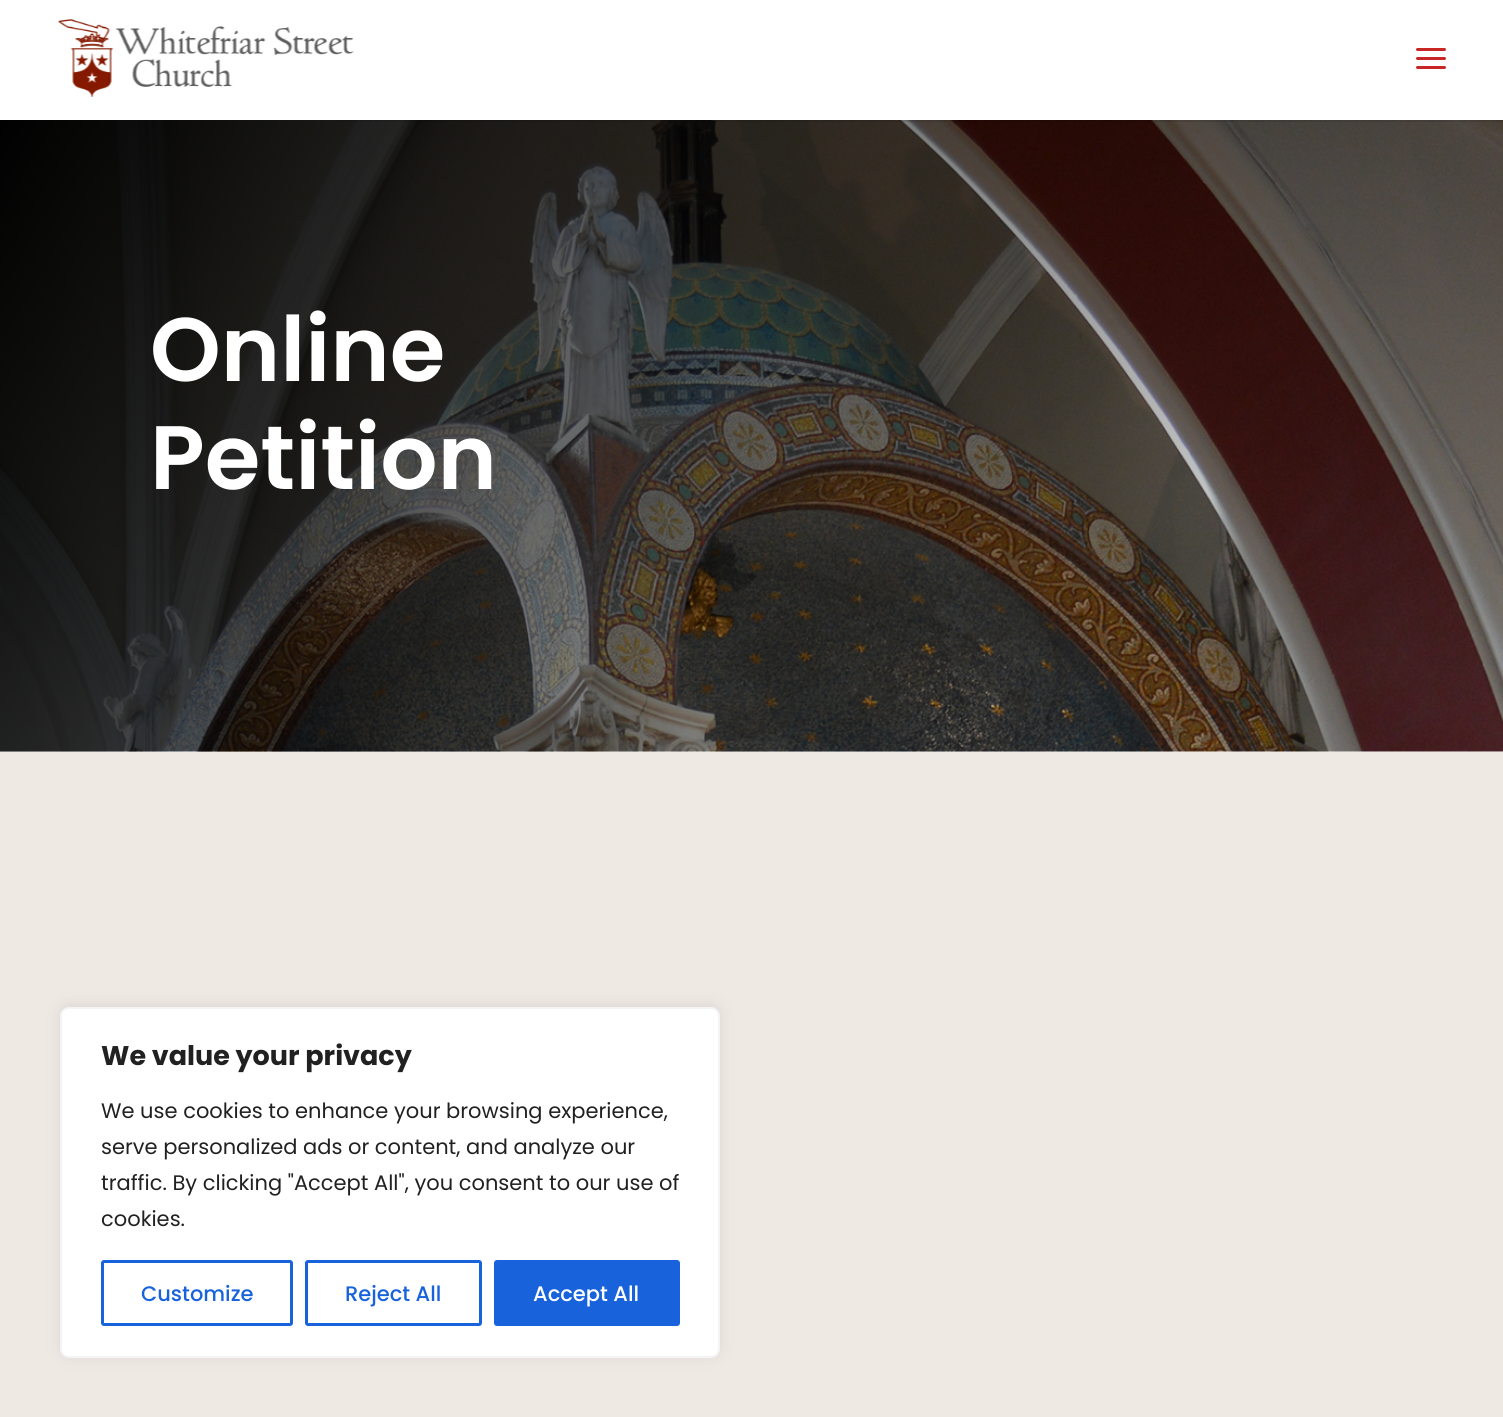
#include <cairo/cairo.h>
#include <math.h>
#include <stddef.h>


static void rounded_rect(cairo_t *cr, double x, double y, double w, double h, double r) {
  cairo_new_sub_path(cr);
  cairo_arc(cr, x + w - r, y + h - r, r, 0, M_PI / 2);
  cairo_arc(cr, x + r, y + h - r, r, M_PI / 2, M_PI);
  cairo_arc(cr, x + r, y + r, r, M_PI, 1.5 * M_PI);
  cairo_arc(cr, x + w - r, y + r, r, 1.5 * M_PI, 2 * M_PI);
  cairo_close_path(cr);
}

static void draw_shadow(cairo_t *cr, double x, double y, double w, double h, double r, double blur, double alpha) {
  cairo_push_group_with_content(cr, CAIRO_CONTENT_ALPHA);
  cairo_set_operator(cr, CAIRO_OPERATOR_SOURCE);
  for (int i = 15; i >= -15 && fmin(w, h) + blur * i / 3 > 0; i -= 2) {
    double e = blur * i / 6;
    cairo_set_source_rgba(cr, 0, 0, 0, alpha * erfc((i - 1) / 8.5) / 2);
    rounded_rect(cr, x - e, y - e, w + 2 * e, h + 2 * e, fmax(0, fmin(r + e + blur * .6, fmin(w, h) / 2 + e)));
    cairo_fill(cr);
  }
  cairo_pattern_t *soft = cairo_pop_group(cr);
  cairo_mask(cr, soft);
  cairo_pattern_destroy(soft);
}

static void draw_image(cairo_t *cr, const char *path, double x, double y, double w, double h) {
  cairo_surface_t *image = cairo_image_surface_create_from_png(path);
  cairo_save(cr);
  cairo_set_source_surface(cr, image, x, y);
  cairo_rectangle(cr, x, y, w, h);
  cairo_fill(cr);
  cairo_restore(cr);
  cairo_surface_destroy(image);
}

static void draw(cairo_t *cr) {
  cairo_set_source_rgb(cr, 1, 1, 1);
  cairo_paint(cr);
  draw_image(cr, "images/3.png", 0, 120, 1503, 632);
  cairo_set_source_rgba(cr, 0, 0, 0, 0.1);
  cairo_rectangle(cr, 337, 120, 1166, 2);
  cairo_fill(cr);
  draw_image(cr, "images/1.png", 58, 19, 296, 78);
  draw_image(cr, "images/2.png", 1416, 48, 30, 21);
  cairo_set_source_rgb(cr, 239 / 255.0, 233 / 255.0, 228 / 255.0);
  cairo_rectangle(cr, 0, 752, 1503, 665);
  cairo_fill(cr);
  cairo_set_source_rgb(cr, 172 / 255.0, 171 / 255.0, 171 / 255.0);
  draw_shadow(cr, 60, 1005, 660, 351, 9, 7.5, 0.3);
  cairo_set_source_rgb(cr, 1, 1, 1);
  rounded_rect(cr, 61, 1008, 658, 349, 8);
  cairo_fill_preserve(cr);
  cairo_set_source_rgb(cr, 244 / 255.0, 244 / 255.0, 244 / 255.0);
  cairo_stroke(cr);
  rounded_rect(cr, 102.5, 1261.5, 189, 63, 1.5);
  cairo_set_source_rgb(cr, 24 / 255.0, 99 / 255.0, 220 / 255.0);
  cairo_set_line_width(cr, 3);
  cairo_stroke(cr);
  rounded_rect(cr, 306.5, 1261.5, 174, 63, 1.5);
  cairo_stroke(cr);
  rounded_rect(cr, 495.5, 1261.5, 183, 63, 1.5);
  cairo_fill_preserve(cr);
  cairo_stroke(cr);
  cairo_select_font_face(cr, "Poppins SemiBold", CAIRO_FONT_SLANT_NORMAL, CAIRO_FONT_WEIGHT_NORMAL);
  cairo_set_font_size(cr, 90);
  cairo_set_source_rgb(cr, 1, 1, 1);
  cairo_move_to(cr, 150, 381);
  cairo_show_text(cr, "Online");
  cairo_move_to(cr, 150, 489);
  cairo_show_text(cr, "Petition");
  cairo_select_font_face(cr, "Poppins", CAIRO_FONT_SLANT_NORMAL, CAIRO_FONT_WEIGHT_BOLD);
  cairo_set_font_size(cr, 27);
  cairo_set_source_rgb(cr, 33 / 255.0, 33 / 255.0, 33 / 255.0);
  cairo_move_to(cr, 101, 1065);
  cairo_show_text(cr, "We value your privacy");
  cairo_select_font_face(cr, "Poppins", CAIRO_FONT_SLANT_NORMAL, CAIRO_FONT_WEIGHT_NORMAL);
  cairo_set_font_size(cr, 21);
  cairo_move_to(cr, 101, 1118);
  cairo_show_text(cr, "We use cookies to enhance your browsing experience,");
  cairo_move_to(cr, 101, 1154);
  cairo_show_text(cr, "serve personalized ads or content, and analyze our");
  cairo_move_to(cr, 101, 1190);
  cairo_show_text(cr, "traffic. By clicking \"Accept All\", you consent to our use of");
  cairo_move_to(cr, 101, 1226);
  cairo_show_text(cr, "cookies.");
  cairo_select_font_face(cr, "Poppins Medium", CAIRO_FONT_SLANT_NORMAL, CAIRO_FONT_WEIGHT_NORMAL);
  cairo_set_source_rgb(cr, 24 / 255.0, 99 / 255.0, 220 / 255.0);
  cairo_move_to(cr, 141, 1301);
  cairo_show_text(cr, "Customize");
  cairo_move_to(cr, 345, 1301);
  cairo_show_text(cr, "Reject All");
  cairo_set_source_rgb(cr, 1, 1, 1);
  cairo_move_to(cr, 533, 1301);
  cairo_show_text(cr, "Accept All");
}

int main(void) {
  cairo_surface_t *surface = cairo_image_surface_create(CAIRO_FORMAT_RGB24, 1503, 1417);
  cairo_t *cr = cairo_create(surface);
  cairo_font_options_t *options = cairo_font_options_create();
  cairo_font_options_set_hint_metrics(options, CAIRO_HINT_METRICS_OFF);
  cairo_font_options_set_hint_style(options, CAIRO_HINT_STYLE_NONE);
  cairo_set_font_options(cr, options);
  cairo_set_miter_limit(cr, 4);
  draw(cr);
  cairo_surface_write_to_png(surface, "out.png");
  cairo_font_options_destroy(options);
  cairo_destroy(cr);
  cairo_surface_destroy(surface);
  return 0;
}
